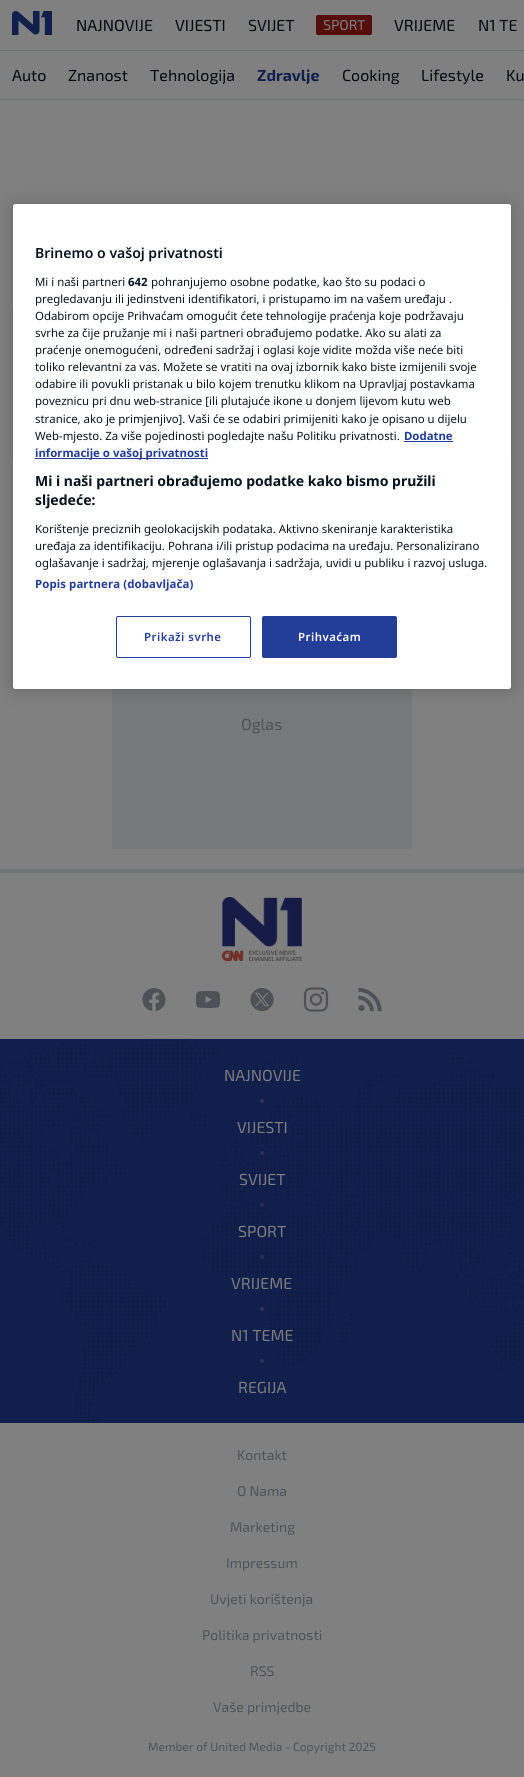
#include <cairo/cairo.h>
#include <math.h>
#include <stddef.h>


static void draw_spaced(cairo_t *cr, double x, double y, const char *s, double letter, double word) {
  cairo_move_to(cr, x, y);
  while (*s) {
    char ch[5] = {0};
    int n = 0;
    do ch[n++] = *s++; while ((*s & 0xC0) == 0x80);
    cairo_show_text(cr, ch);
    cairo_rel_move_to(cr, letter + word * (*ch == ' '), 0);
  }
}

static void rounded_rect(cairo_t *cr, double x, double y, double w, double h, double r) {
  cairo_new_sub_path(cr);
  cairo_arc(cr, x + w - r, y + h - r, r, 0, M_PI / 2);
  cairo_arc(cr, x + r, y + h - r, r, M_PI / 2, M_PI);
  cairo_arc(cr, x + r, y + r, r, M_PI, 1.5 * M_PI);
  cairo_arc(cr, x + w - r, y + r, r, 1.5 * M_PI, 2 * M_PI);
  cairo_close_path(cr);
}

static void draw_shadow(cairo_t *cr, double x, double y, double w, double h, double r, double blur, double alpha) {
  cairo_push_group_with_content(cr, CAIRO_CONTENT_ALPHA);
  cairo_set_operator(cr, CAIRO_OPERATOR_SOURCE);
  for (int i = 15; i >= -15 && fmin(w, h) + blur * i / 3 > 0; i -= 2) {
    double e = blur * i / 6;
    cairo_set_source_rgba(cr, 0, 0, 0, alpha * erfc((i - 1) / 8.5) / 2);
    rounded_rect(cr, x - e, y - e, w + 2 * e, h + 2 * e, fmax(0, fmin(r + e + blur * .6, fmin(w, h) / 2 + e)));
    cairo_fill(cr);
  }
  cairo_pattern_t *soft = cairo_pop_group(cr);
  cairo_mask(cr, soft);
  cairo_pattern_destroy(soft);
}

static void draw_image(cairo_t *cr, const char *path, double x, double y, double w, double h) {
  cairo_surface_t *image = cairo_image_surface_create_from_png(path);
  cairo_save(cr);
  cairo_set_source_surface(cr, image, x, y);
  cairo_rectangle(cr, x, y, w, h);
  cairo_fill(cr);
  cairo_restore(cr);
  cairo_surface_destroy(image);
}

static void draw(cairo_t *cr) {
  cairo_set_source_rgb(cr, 128 / 255.0, 128 / 255.0, 128 / 255.0);
  cairo_paint(cr);
  cairo_set_source_rgb(cr, 111 / 255.0, 116 / 255.0, 119 / 255.0);
  cairo_rectangle(cr, 0, 50, 524, 1);
  cairo_fill(cr);
  draw_image(cr, "images/1.png", 12, 11, 40, 24);
  draw_image(cr, "images/2.png", 316, 15, 56, 20);
  cairo_rectangle(cr, 0, 99, 524, 1);
  cairo_fill(cr);
  cairo_set_source_rgb(cr, 122 / 255.0, 122 / 255.0, 123 / 255.0);
  rounded_rect(cr, 12, 303, 500, 160, 6);
  cairo_fill(cr);
  cairo_set_source_rgb(cr, 119 / 255.0, 120 / 255.0, 121 / 255.0);
  cairo_rectangle(cr, 112, 689, 300, 160);
  cairo_fill(cr);
  cairo_set_source_rgb(cr, 0, 0, 0);
  draw_shadow(cr, 13, 204, 498, 485, 2.5, 9, 0.2);
  cairo_set_source_rgb(cr, 1, 1, 1);
  rounded_rect(cr, 13, 204, 498, 485, 2.5);
  cairo_fill(cr);
  cairo_set_source_rgb(cr, 34 / 255.0, 62 / 255.0, 153 / 255.0);
  cairo_rectangle(cr, 404, 441, 49, 1);
  cairo_fill(cr);
  cairo_rectangle(cr, 35, 458, 173, 1);
  cairo_fill(cr);
  rounded_rect(cr, 116.5, 616.5, 134, 41, 1.5);
  cairo_set_line_width(cr, 1);
  cairo_stroke(cr);
  rounded_rect(cr, 262.5, 616.5, 134, 41, 1.5);
  cairo_fill_preserve(cr);
  cairo_stroke(cr);
  cairo_set_source_rgb(cr, 111 / 255.0, 116 / 255.0, 119 / 255.0);
  cairo_rectangle(cr, 0, 869, 524, 4);
  cairo_fill(cr);
  draw_image(cr, "images/3.png", 222, 897, 80, 64);
  draw_image(cr, "images/4.png", 142, 988, 24, 23);
  draw_image(cr, "images/5.png", 195, 991, 26, 18);
  draw_image(cr, "images/6.png", 250, 987, 24, 25);
  draw_image(cr, "images/7.png", 303, 987, 26, 25);
  draw_image(cr, "images/8.png", 358, 988, 24, 24);
  cairo_set_source_rgb(cr, 17 / 255.0, 31 / 255.0, 77 / 255.0);
  cairo_rectangle(cr, 0, 1039, 524, 384);
  cairo_fill(cr);
  draw_image(cr, "images/9.png", 0, 1039, 524, 384);
  cairo_set_source_rgb(cr, 39 / 255.0, 51 / 255.0, 87 / 255.0);
  cairo_arc(cr, 262, 1101, 2, 0, 2 * M_PI);
  cairo_fill(cr);
  cairo_set_source_rgba(cr, 128 / 255.0, 128 / 255.0, 128 / 255.0, 0.2);
  cairo_arc(cr, 262, 1153, 2, 0, 2 * M_PI);
  cairo_fill(cr);
  cairo_arc(cr, 262, 1205, 2, 0, 2 * M_PI);
  cairo_fill(cr);
  cairo_arc(cr, 262, 1257, 2, 0, 2 * M_PI);
  cairo_fill(cr);
  cairo_set_source_rgb(cr, 39 / 255.0, 51 / 255.0, 87 / 255.0);
  cairo_arc(cr, 262, 1309, 2, 0, 2 * M_PI);
  cairo_fill(cr);
  cairo_arc(cr, 262, 1361, 2, 0, 2 * M_PI);
  cairo_fill(cr);
  cairo_select_font_face(cr, "Exo 2", CAIRO_FONT_SLANT_NORMAL, CAIRO_FONT_WEIGHT_NORMAL);
  cairo_set_font_size(cr, 16);
  cairo_set_source_rgb(cr, 4 / 255.0, 6 / 255.0, 16 / 255.0);
  cairo_move_to(cr, 76, 31);
  cairo_show_text(cr, "NAJNOVIJE");
  cairo_move_to(cr, 175, 31);
  cairo_show_text(cr, "VIJESTI");
  cairo_move_to(cr, 248, 31);
  cairo_show_text(cr, "SVIJET");
  cairo_move_to(cr, 394, 31);
  cairo_show_text(cr, "VRIJEME");
  cairo_move_to(cr, 478, 31);
  cairo_show_text(cr, "N1 TE");
  cairo_move_to(cr, 12, 81);
  cairo_show_text(cr, "Auto");
  cairo_move_to(cr, 68, 81);
  cairo_show_text(cr, "Znanost");
  cairo_move_to(cr, 150, 81);
  cairo_show_text(cr, "Tehnologija");
  cairo_select_font_face(cr, "Exo 2", CAIRO_FONT_SLANT_NORMAL, CAIRO_FONT_WEIGHT_BOLD);
  cairo_set_source_rgb(cr, 17 / 255.0, 31 / 255.0, 77 / 255.0);
  cairo_move_to(cr, 257, 81);
  cairo_show_text(cr, "Zdravlje");
  cairo_select_font_face(cr, "Exo 2", CAIRO_FONT_SLANT_NORMAL, CAIRO_FONT_WEIGHT_NORMAL);
  cairo_set_source_rgb(cr, 4 / 255.0, 6 / 255.0, 16 / 255.0);
  cairo_move_to(cr, 342, 81);
  cairo_show_text(cr, "Cooking");
  cairo_move_to(cr, 421, 81);
  cairo_show_text(cr, "Lifestyle");
  cairo_move_to(cr, 506, 81);
  cairo_show_text(cr, "Ku");
  cairo_select_font_face(cr, "Noto Sans SemiBold", CAIRO_FONT_SLANT_NORMAL, CAIRO_FONT_WEIGHT_NORMAL);
  cairo_set_font_size(cr, 14);
  cairo_set_source_rgb(cr, 5 / 255.0, 19 / 255.0, 30 / 255.0);
  cairo_move_to(cr, 35, 258);
  cairo_show_text(cr, "Brinemo o vašoj privatnosti");
  cairo_select_font_face(cr, "Noto Sans", CAIRO_FONT_SLANT_NORMAL, CAIRO_FONT_WEIGHT_NORMAL);
  cairo_set_font_size(cr, 11.4);
  cairo_move_to(cr, 35, 286);
  cairo_show_text(cr, "Mi i naši partneri");
  cairo_select_font_face(cr, "Noto Sans", CAIRO_FONT_SLANT_NORMAL, CAIRO_FONT_WEIGHT_BOLD);
  cairo_move_to(cr, 128, 286);
  cairo_show_text(cr, "642");
  cairo_select_font_face(cr, "Noto Sans", CAIRO_FONT_SLANT_NORMAL, CAIRO_FONT_WEIGHT_NORMAL);
  cairo_move_to(cr, 151, 286);
  cairo_show_text(cr, "pohranjujemo osobne podatke, kao što su podaci o");
  cairo_move_to(cr, 35, 303);
  cairo_show_text(cr, "pregledavanju ili jedinstveni identifikatori, i pristupamo im na vašem uređaju .");
  cairo_move_to(cr, 35, 320);
  cairo_show_text(cr, "Odabirom opcije Prihvaćam omogućit ćete tehnologije praćenja koje podržavaju");
  cairo_move_to(cr, 35, 337);
  cairo_show_text(cr, "svrhe za čije pružanje mi i naši partneri obrađujemo podatke. Ako su alati za");
  cairo_move_to(cr, 35, 354);
  cairo_show_text(cr, "praćenje onemogućeni, određeni sadržaj i oglasi koje vidite možda više neće biti");
  cairo_move_to(cr, 35, 371);
  cairo_show_text(cr, "toliko relevantni za vas. Možete se vratiti na ovaj izbornik kako biste izmijenili svoje");
  cairo_move_to(cr, 35, 388);
  cairo_show_text(cr, "odabire ili povukli pristanak u bilo kojem trenutku klikom na Upravljaj postavkama");
  cairo_move_to(cr, 35, 405);
  cairo_show_text(cr, "poveznicu pri dnu web-stranice [ili plutajuće ikone u donjem lijevom kutu web");
  cairo_move_to(cr, 35, 423);
  cairo_show_text(cr, "stranice, ako je primjenjivo]. Vaši će se odabiri primijeniti kako je opisano u dijelu");
  cairo_move_to(cr, 35, 440);
  cairo_show_text(cr, "Web-mjesto. Za više pojedinosti pogledajte našu Politiku privatnosti.");
  cairo_select_font_face(cr, "Noto Sans", CAIRO_FONT_SLANT_NORMAL, CAIRO_FONT_WEIGHT_BOLD);
  cairo_set_source_rgb(cr, 34 / 255.0, 62 / 255.0, 153 / 255.0);
  cairo_move_to(cr, 404, 440);
  cairo_show_text(cr, "Dodatne");
  cairo_move_to(cr, 35, 457);
  cairo_show_text(cr, "informacije o vašoj privatnosti");
  cairo_set_font_size(cr, 14);
  cairo_set_source_rgb(cr, 5 / 255.0, 19 / 255.0, 30 / 255.0);
  cairo_move_to(cr, 35, 486);
  cairo_show_text(cr, "Mi i naši partneri obrađujemo podatke kako bismo pružili");
  cairo_move_to(cr, 35, 505);
  cairo_show_text(cr, "sljedeće:");
  cairo_select_font_face(cr, "Noto Sans", CAIRO_FONT_SLANT_NORMAL, CAIRO_FONT_WEIGHT_NORMAL);
  cairo_set_font_size(cr, 11.4);
  cairo_move_to(cr, 35, 533);
  cairo_show_text(cr, "Korištenje preciznih geolokacijskih podataka. Aktivno skeniranje karakteristika");
  cairo_move_to(cr, 35, 550);
  cairo_show_text(cr, "uređaja za identifikaciju. Pohrana i/ili pristup podacima na uređaju. Personalizirano");
  cairo_move_to(cr, 35, 567);
  cairo_show_text(cr, "oglašavanje i sadržaj, mjerenje oglašavanja i sadržaja, uvidi u publiku i razvoj usluga.");
  cairo_select_font_face(cr, "Noto Sans", CAIRO_FONT_SLANT_NORMAL, CAIRO_FONT_WEIGHT_BOLD);
  cairo_set_source_rgb(cr, 34 / 255.0, 62 / 255.0, 153 / 255.0);
  draw_spaced(cr, 35, 588, "Popis partnera (dobavljača)", 0.1, 0);
  cairo_select_font_face(cr, "Noto Sans SemiBold", CAIRO_FONT_SLANT_NORMAL, CAIRO_FONT_WEIGHT_NORMAL);
  draw_spaced(cr, 144, 641, "Prikaži svrhe", 0.5, 0);
  cairo_set_source_rgb(cr, 1, 1, 1);
  draw_spaced(cr, 298, 641, "Prihvaćam", 0.5, 0);
  cairo_select_font_face(cr, "Exo 2", CAIRO_FONT_SLANT_NORMAL, CAIRO_FONT_WEIGHT_NORMAL);
  cairo_set_font_size(cr, 16);
  cairo_set_source_rgb(cr, 81 / 255.0, 81 / 255.0, 81 / 255.0);
  cairo_move_to(cr, 241, 730);
  cairo_show_text(cr, "Oglas");
  cairo_set_source_rgb(cr, 125 / 255.0, 125 / 255.0, 126 / 255.0);
  cairo_move_to(cr, 224, 1081);
  cairo_show_text(cr, "NAJNOVIJE");
  cairo_move_to(cr, 237, 1133);
  cairo_show_text(cr, "VIJESTI");
  cairo_move_to(cr, 239, 1185);
  cairo_show_text(cr, "SVIJET");
  cairo_move_to(cr, 238, 1237);
  cairo_show_text(cr, "SPORT");
  cairo_move_to(cr, 231, 1289);
  cairo_show_text(cr, "VRIJEME");
  cairo_move_to(cr, 231, 1341);
  cairo_show_text(cr, "N1 TEME");
  cairo_move_to(cr, 238, 1393);
  cairo_show_text(cr, "REGIJA");
  cairo_set_font_size(cr, 14);
  cairo_set_source_rgb(cr, 78 / 255.0, 82 / 255.0, 88 / 255.0);
  cairo_move_to(cr, 237, 1460);
  cairo_show_text(cr, "Kontakt");
  cairo_move_to(cr, 237, 1496);
  cairo_show_text(cr, "O Nama");
  cairo_move_to(cr, 230, 1532);
  cairo_show_text(cr, "Marketing");
  cairo_move_to(cr, 226, 1568);
  cairo_show_text(cr, "Impressum");
  cairo_move_to(cr, 210, 1604);
  cairo_show_text(cr, "Uvjeti korištenja");
  cairo_move_to(cr, 202, 1640);
  cairo_show_text(cr, "Politika privatnosti");
  cairo_move_to(cr, 250, 1676);
  cairo_show_text(cr, "RSS");
  cairo_move_to(cr, 213, 1712);
  cairo_show_text(cr, "Vaše primjedbe");
  cairo_set_font_size(cr, 12);
  cairo_move_to(cr, 148, 1751);
  cairo_show_text(cr, "Member of United Media - Copyright 2025");
}

int main(void) {
  cairo_surface_t *surface = cairo_image_surface_create(CAIRO_FORMAT_RGB24, 524, 1777);
  cairo_t *cr = cairo_create(surface);
  cairo_font_options_t *options = cairo_font_options_create();
  cairo_font_options_set_hint_metrics(options, CAIRO_HINT_METRICS_OFF);
  cairo_font_options_set_hint_style(options, CAIRO_HINT_STYLE_NONE);
  cairo_set_font_options(cr, options);
  cairo_set_miter_limit(cr, 4);
  draw(cr);
  cairo_surface_write_to_png(surface, "out.png");
  cairo_font_options_destroy(options);
  cairo_destroy(cr);
  cairo_surface_destroy(surface);
  return 0;
}
